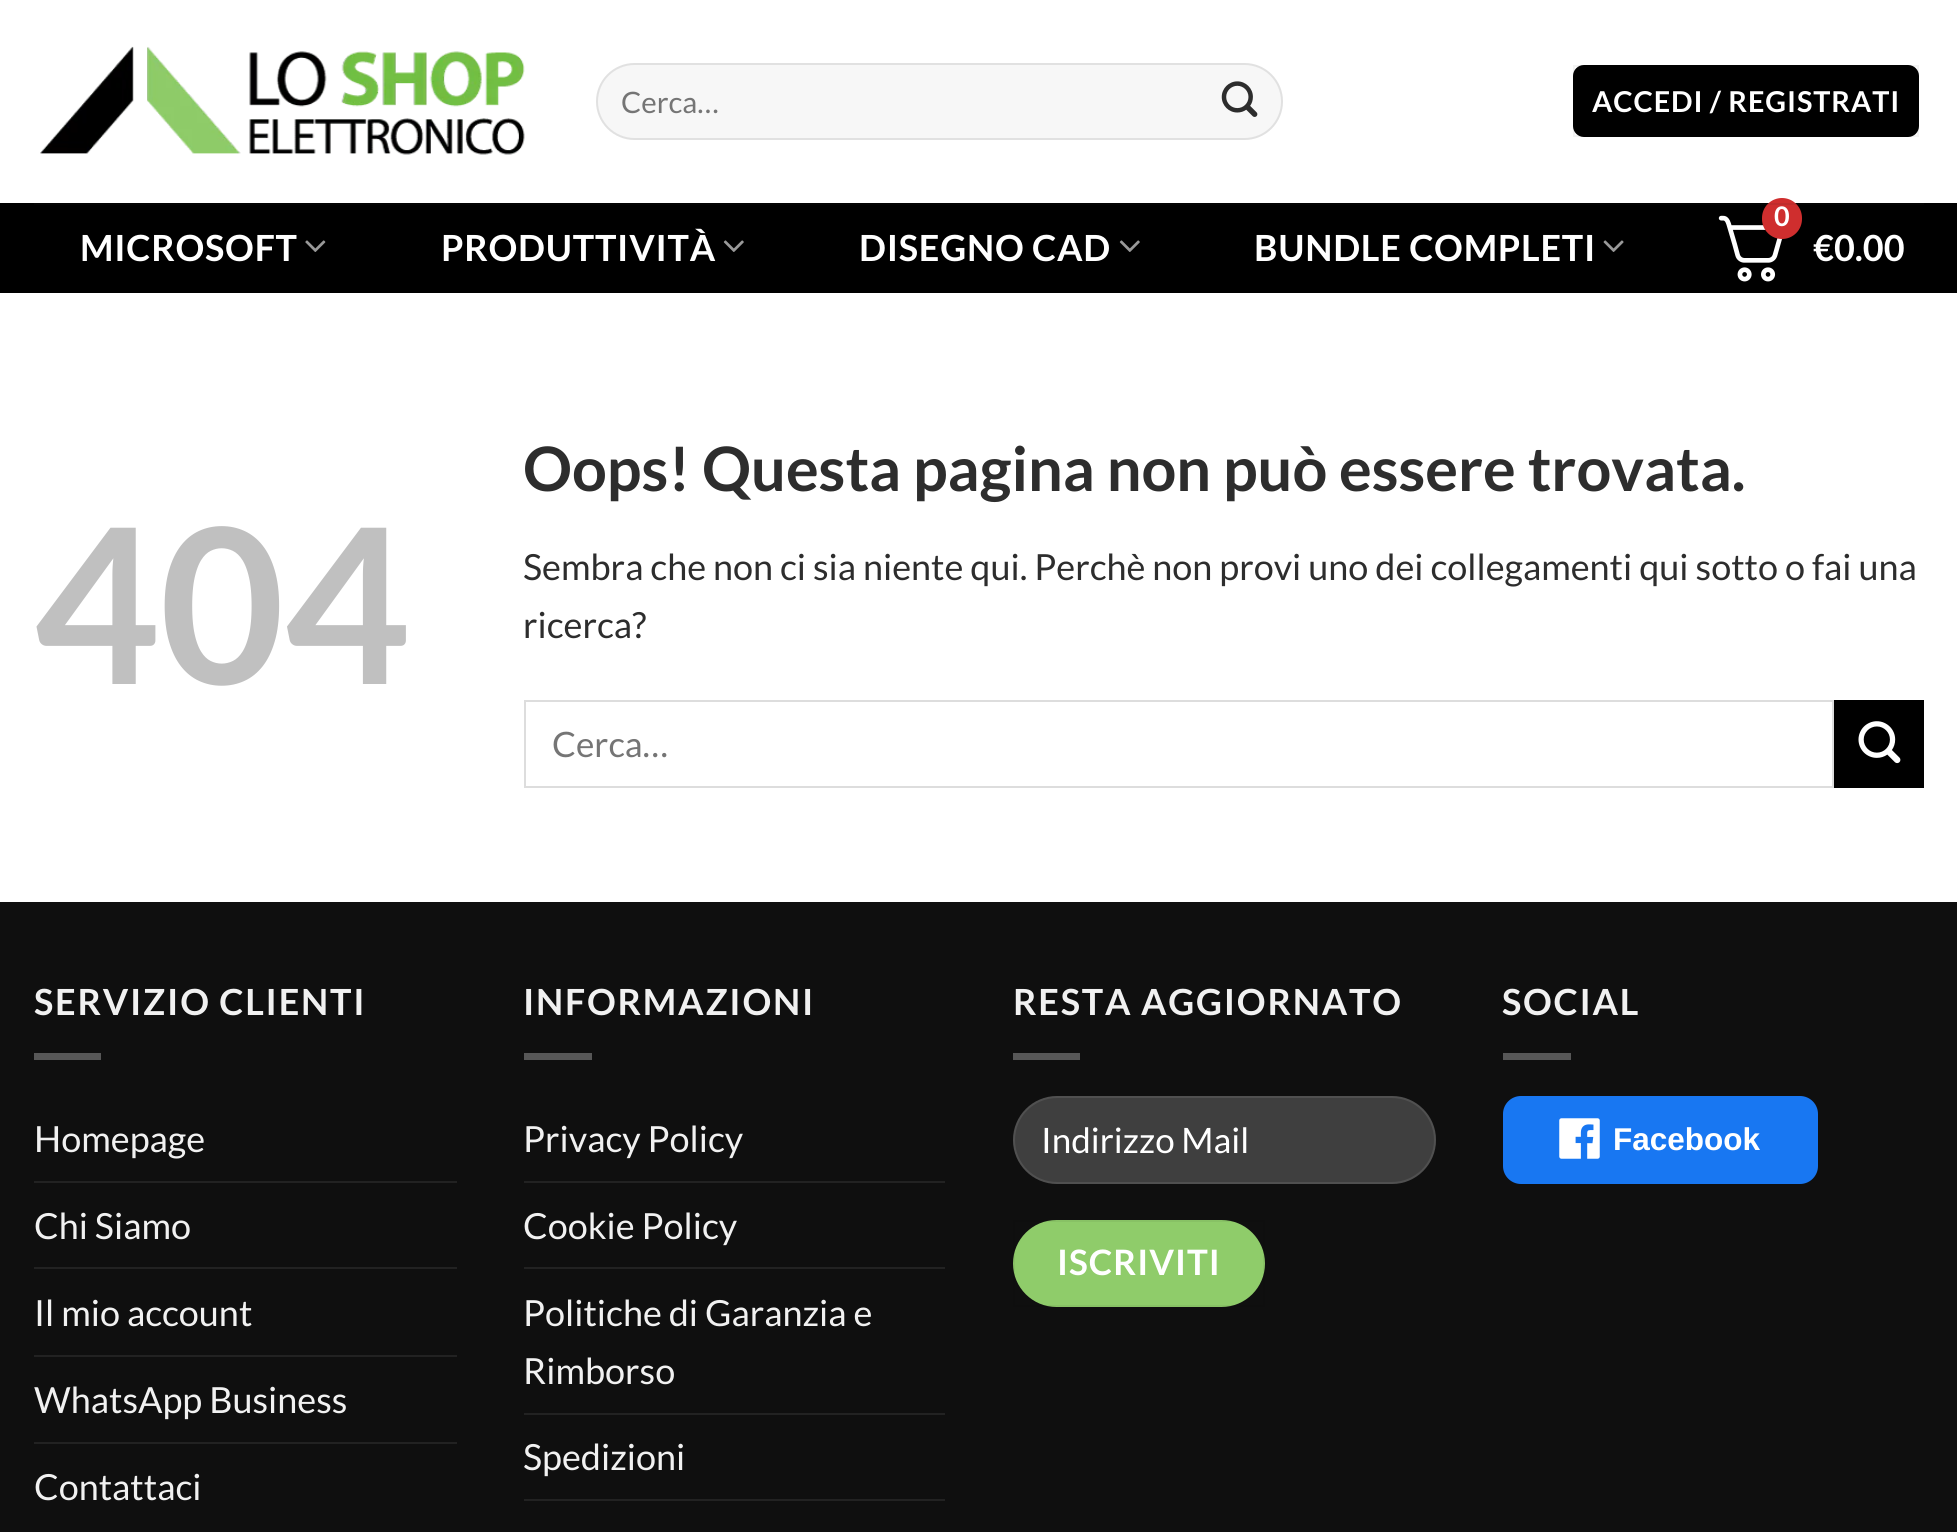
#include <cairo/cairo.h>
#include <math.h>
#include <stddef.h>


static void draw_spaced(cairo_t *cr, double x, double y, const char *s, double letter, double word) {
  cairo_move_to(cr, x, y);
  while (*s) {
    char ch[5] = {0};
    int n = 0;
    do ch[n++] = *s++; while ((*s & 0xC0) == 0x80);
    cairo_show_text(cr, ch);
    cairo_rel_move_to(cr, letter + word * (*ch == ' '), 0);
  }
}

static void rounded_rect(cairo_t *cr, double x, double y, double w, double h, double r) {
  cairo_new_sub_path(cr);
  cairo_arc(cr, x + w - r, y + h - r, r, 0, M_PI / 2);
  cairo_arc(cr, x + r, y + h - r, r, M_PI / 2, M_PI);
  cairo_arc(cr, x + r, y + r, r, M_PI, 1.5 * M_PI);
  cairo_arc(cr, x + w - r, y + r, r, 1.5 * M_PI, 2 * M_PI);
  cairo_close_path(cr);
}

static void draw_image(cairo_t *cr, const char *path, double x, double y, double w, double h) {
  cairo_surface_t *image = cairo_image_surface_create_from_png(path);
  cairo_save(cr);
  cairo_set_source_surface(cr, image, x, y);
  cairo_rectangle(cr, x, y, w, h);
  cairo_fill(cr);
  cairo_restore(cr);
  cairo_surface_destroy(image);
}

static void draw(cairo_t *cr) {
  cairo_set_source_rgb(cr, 1, 1, 1);
  cairo_paint(cr);
  draw_image(cr, "images/1.png", 40, 46, 485, 109);
  cairo_set_source_rgb(cr, 247 / 255.0, 247 / 255.0, 247 / 255.0);
  rounded_rect(cr, 596, 63, 687, 77, 38.5);
  cairo_fill(cr);
  rounded_rect(cr, 597, 64, 685, 75, 37.5);
  cairo_set_source_rgba(cr, 0, 0, 0, 0.09);
  cairo_stroke(cr);
  draw_image(cr, "images/2.png", 1221, 81, 37, 36);
  cairo_set_source_rgb(cr, 0, 0, 0);
  rounded_rect(cr, 1573, 65, 346, 72, 11);
  cairo_fill(cr);
  cairo_rectangle(cr, 1574, 66, 344, 70);
  cairo_set_source_rgba(cr, 0, 0, 0, 0.05);
  cairo_stroke(cr);
  cairo_set_source_rgb(cr, 0, 0, 0);
  cairo_rectangle(cr, 0, 203, 1957, 90);
  cairo_fill(cr);
  draw_image(cr, "images/6.png", 1718, 215, 65, 67);
  cairo_set_source_rgb(cr, 207 / 255.0, 46 / 255.0, 46 / 255.0);
  rounded_rect(cr, 1762, 198, 40, 41, 20);
  cairo_fill(cr);
  cairo_set_source_rgba(cr, 45 / 255.0, 45 / 255.0, 45 / 255.0, 0.1);
  cairo_rectangle(cr, 34, 203, 1890, 2);
  cairo_fill(cr);
  draw_image(cr, "images/3.png", 305, 240, 21, 12);
  draw_image(cr, "images/4.png", 723, 240, 21, 12);
  draw_image(cr, "images/4.png", 1119, 240, 21, 12);
  draw_image(cr, "images/5.png", 1603, 240, 21, 12);
  cairo_rectangle(cr, 525, 701, 1308, 86);
  cairo_set_source_rgb(cr, 221 / 255.0, 221 / 255.0, 221 / 255.0);
  cairo_stroke(cr);
  cairo_set_source_rgb(cr, 0, 0, 0);
  cairo_rectangle(cr, 1834, 700, 90, 88);
  cairo_fill(cr);
  draw_image(cr, "images/7.png", 1858, 721, 43, 43);
  cairo_set_source_rgb(cr, 15 / 255.0, 15 / 255.0, 15 / 255.0);
  cairo_rectangle(cr, 0, 902, 1957, 630);
  cairo_fill(cr);
  cairo_set_source_rgb(cr, 87 / 255.0, 87 / 255.0, 87 / 255.0);
  cairo_rectangle(cr, 34, 1053, 67, 7);
  cairo_fill(cr);
  cairo_set_source_rgb(cr, 34 / 255.0, 34 / 255.0, 34 / 255.0);
  cairo_rectangle(cr, 34, 1181, 423, 2);
  cairo_fill(cr);
  cairo_rectangle(cr, 34, 1267, 423, 2);
  cairo_fill(cr);
  cairo_rectangle(cr, 34, 1355, 423, 2);
  cairo_fill(cr);
  cairo_rectangle(cr, 34, 1442, 423, 2);
  cairo_fill(cr);
  cairo_set_source_rgb(cr, 87 / 255.0, 87 / 255.0, 87 / 255.0);
  cairo_rectangle(cr, 524, 1053, 68, 7);
  cairo_fill(cr);
  cairo_set_source_rgb(cr, 34 / 255.0, 34 / 255.0, 34 / 255.0);
  cairo_rectangle(cr, 524, 1181, 421, 2);
  cairo_fill(cr);
  cairo_rectangle(cr, 524, 1267, 421, 2);
  cairo_fill(cr);
  cairo_rectangle(cr, 524, 1413, 421, 2);
  cairo_fill(cr);
  cairo_rectangle(cr, 524, 1499, 421, 2);
  cairo_fill(cr);
  cairo_set_source_rgb(cr, 87 / 255.0, 87 / 255.0, 87 / 255.0);
  cairo_rectangle(cr, 1013, 1053, 67, 7);
  cairo_fill(cr);
  cairo_set_source_rgb(cr, 63 / 255.0, 63 / 255.0, 63 / 255.0);
  rounded_rect(cr, 1013, 1096, 423, 88, 44);
  cairo_fill(cr);
  rounded_rect(cr, 1014, 1097, 421, 86, 43);
  cairo_set_source_rgba(cr, 1, 1, 1, 0.09);
  cairo_stroke(cr);
  cairo_set_source_rgb(cr, 143 / 255.0, 204 / 255.0, 106 / 255.0);
  rounded_rect(cr, 1013, 1220, 252, 87, 43.5);
  cairo_fill(cr);
  cairo_rectangle(cr, 1014, 1221, 250, 85);
  cairo_set_source_rgba(cr, 0, 0, 0, 0.05);
  cairo_stroke(cr);
  cairo_set_source_rgb(cr, 87 / 255.0, 87 / 255.0, 87 / 255.0);
  cairo_rectangle(cr, 1503, 1053, 68, 7);
  cairo_fill(cr);
  cairo_set_source_rgb(cr, 24 / 255.0, 119 / 255.0, 242 / 255.0);
  rounded_rect(cr, 1503, 1096, 315, 88, 18);
  cairo_fill(cr);
  draw_image(cr, "images/8.png", 1559, 1118, 41, 41);
  cairo_select_font_face(cr, "Lato", CAIRO_FONT_SLANT_NORMAL, CAIRO_FONT_WEIGHT_NORMAL);
  cairo_set_font_size(cr, 29.5);
  cairo_set_source_rgb(cr, 117 / 255.0, 117 / 255.0, 117 / 255.0);
  cairo_move_to(cr, 621, 113);
  cairo_show_text(cr, "Cerca…");
  cairo_select_font_face(cr, "Lato", CAIRO_FONT_SLANT_NORMAL, CAIRO_FONT_WEIGHT_BOLD);
  cairo_set_font_size(cr, 28.75);
  cairo_set_source_rgb(cr, 1, 1, 1);
  draw_spaced(cr, 1592, 112, "ACCEDI / REGISTRATI", 0.9, 0);
  cairo_set_font_size(cr, 36);
  draw_spaced(cr, 80, 261, "MICROSOFT", 0.75, 0);
  draw_spaced(cr, 441, 261, "PRODUTTIVITÀ", 0.75, 0);
  draw_spaced(cr, 859, 261, "DISEGNO CAD", 0.75, 0);
  draw_spaced(cr, 1254, 261, "BUNDLE COMPLETI", 0.75, 0);
  cairo_set_font_size(cr, 27);
  cairo_move_to(cr, 1774, 226);
  cairo_show_text(cr, "0");
  cairo_set_font_size(cr, 36);
  cairo_move_to(cr, 1813, 261);
  cairo_show_text(cr, "€0.00");
  cairo_set_font_size(cr, 216);
  cairo_set_source_rgb(cr, 192 / 255.0, 192 / 255.0, 192 / 255.0);
  cairo_move_to(cr, 34, 684);
  cairo_show_text(cr, "404");
  cairo_set_font_size(cr, 61.25);
  cairo_set_source_rgb(cr, 45 / 255.0, 45 / 255.0, 45 / 255.0);
  cairo_move_to(cr, 523, 491);
  cairo_show_text(cr, "Oops! Questa pagina non può essere trovata.");
  cairo_select_font_face(cr, "Lato", CAIRO_FONT_SLANT_NORMAL, CAIRO_FONT_WEIGHT_NORMAL);
  cairo_set_font_size(cr, 36);
  cairo_move_to(cr, 523, 580);
  cairo_show_text(cr, "Sembra che non ci sia niente qui. Perchè non provi uno dei collegamenti qui sotto o fai una");
  cairo_move_to(cr, 523, 638);
  cairo_show_text(cr, "ricerca?");
  cairo_set_font_size(cr, 35);
  cairo_set_source_rgb(cr, 117 / 255.0, 117 / 255.0, 117 / 255.0);
  cairo_move_to(cr, 552, 757);
  cairo_show_text(cr, "Cerca…");
  cairo_select_font_face(cr, "Lato", CAIRO_FONT_SLANT_NORMAL, CAIRO_FONT_WEIGHT_BOLD);
  cairo_set_font_size(cr, 36);
  cairo_set_source_rgb(cr, 241 / 255.0, 241 / 255.0, 241 / 255.0);
  draw_spaced(cr, 34, 1015, "SERVIZIO CLIENTI", 1.75, 0);
  cairo_select_font_face(cr, "Lato", CAIRO_FONT_SLANT_NORMAL, CAIRO_FONT_WEIGHT_NORMAL);
  cairo_move_to(cr, 34, 1152);
  cairo_show_text(cr, "Homepage");
  cairo_move_to(cr, 34, 1239);
  cairo_show_text(cr, "Chi Siamo");
  cairo_move_to(cr, 34, 1326);
  cairo_show_text(cr, "Il mio account");
  cairo_move_to(cr, 34, 1413);
  cairo_show_text(cr, "WhatsApp Business");
  cairo_move_to(cr, 34, 1500);
  cairo_show_text(cr, "Contattaci");
  cairo_select_font_face(cr, "Lato", CAIRO_FONT_SLANT_NORMAL, CAIRO_FONT_WEIGHT_BOLD);
  draw_spaced(cr, 523, 1015, "INFORMAZIONI", 1.75, 0);
  cairo_select_font_face(cr, "Lato", CAIRO_FONT_SLANT_NORMAL, CAIRO_FONT_WEIGHT_NORMAL);
  cairo_move_to(cr, 523, 1152);
  cairo_show_text(cr, "Privacy Policy");
  cairo_move_to(cr, 523, 1239);
  cairo_show_text(cr, "Cookie Policy");
  cairo_move_to(cr, 523, 1326);
  cairo_show_text(cr, "Politiche di Garanzia e");
  cairo_move_to(cr, 523, 1384);
  cairo_show_text(cr, "Rimborso");
  cairo_move_to(cr, 523, 1470);
  cairo_show_text(cr, "Spedizioni");
  cairo_select_font_face(cr, "Lato", CAIRO_FONT_SLANT_NORMAL, CAIRO_FONT_WEIGHT_BOLD);
  draw_spaced(cr, 1013, 1015, "RESTA AGGIORNATO", 1.75, 0);
  cairo_select_font_face(cr, "Lato", CAIRO_FONT_SLANT_NORMAL, CAIRO_FONT_WEIGHT_NORMAL);
  cairo_set_font_size(cr, 35);
  cairo_set_source_rgb(cr, 1, 1, 1);
  cairo_move_to(cr, 1041, 1153);
  cairo_show_text(cr, "Indirizzo Mail");
  cairo_select_font_face(cr, "Lato", CAIRO_FONT_SLANT_NORMAL, CAIRO_FONT_WEIGHT_BOLD);
  draw_spaced(cr, 1057, 1275, "ISCRIVITI", 1, 0);
  cairo_set_font_size(cr, 36);
  cairo_set_source_rgb(cr, 241 / 255.0, 241 / 255.0, 241 / 255.0);
  draw_spaced(cr, 1502, 1015, "SOCIAL", 1.75, 0);
  cairo_select_font_face(cr, "Liberation Sans", CAIRO_FONT_SLANT_NORMAL, CAIRO_FONT_WEIGHT_BOLD);
  cairo_set_font_size(cr, 31.5);
  cairo_set_source_rgb(cr, 1, 1, 1);
  cairo_move_to(cr, 1613, 1150);
  cairo_show_text(cr, "Facebook");
}

int main(void) {
  cairo_surface_t *surface = cairo_image_surface_create(CAIRO_FORMAT_RGB24, 1957, 1532);
  cairo_t *cr = cairo_create(surface);
  cairo_font_options_t *options = cairo_font_options_create();
  cairo_font_options_set_hint_metrics(options, CAIRO_HINT_METRICS_OFF);
  cairo_font_options_set_hint_style(options, CAIRO_HINT_STYLE_NONE);
  cairo_set_font_options(cr, options);
  cairo_set_miter_limit(cr, 4);
  draw(cr);
  cairo_surface_write_to_png(surface, "out.png");
  cairo_font_options_destroy(options);
  cairo_destroy(cr);
  cairo_surface_destroy(surface);
  return 0;
}
